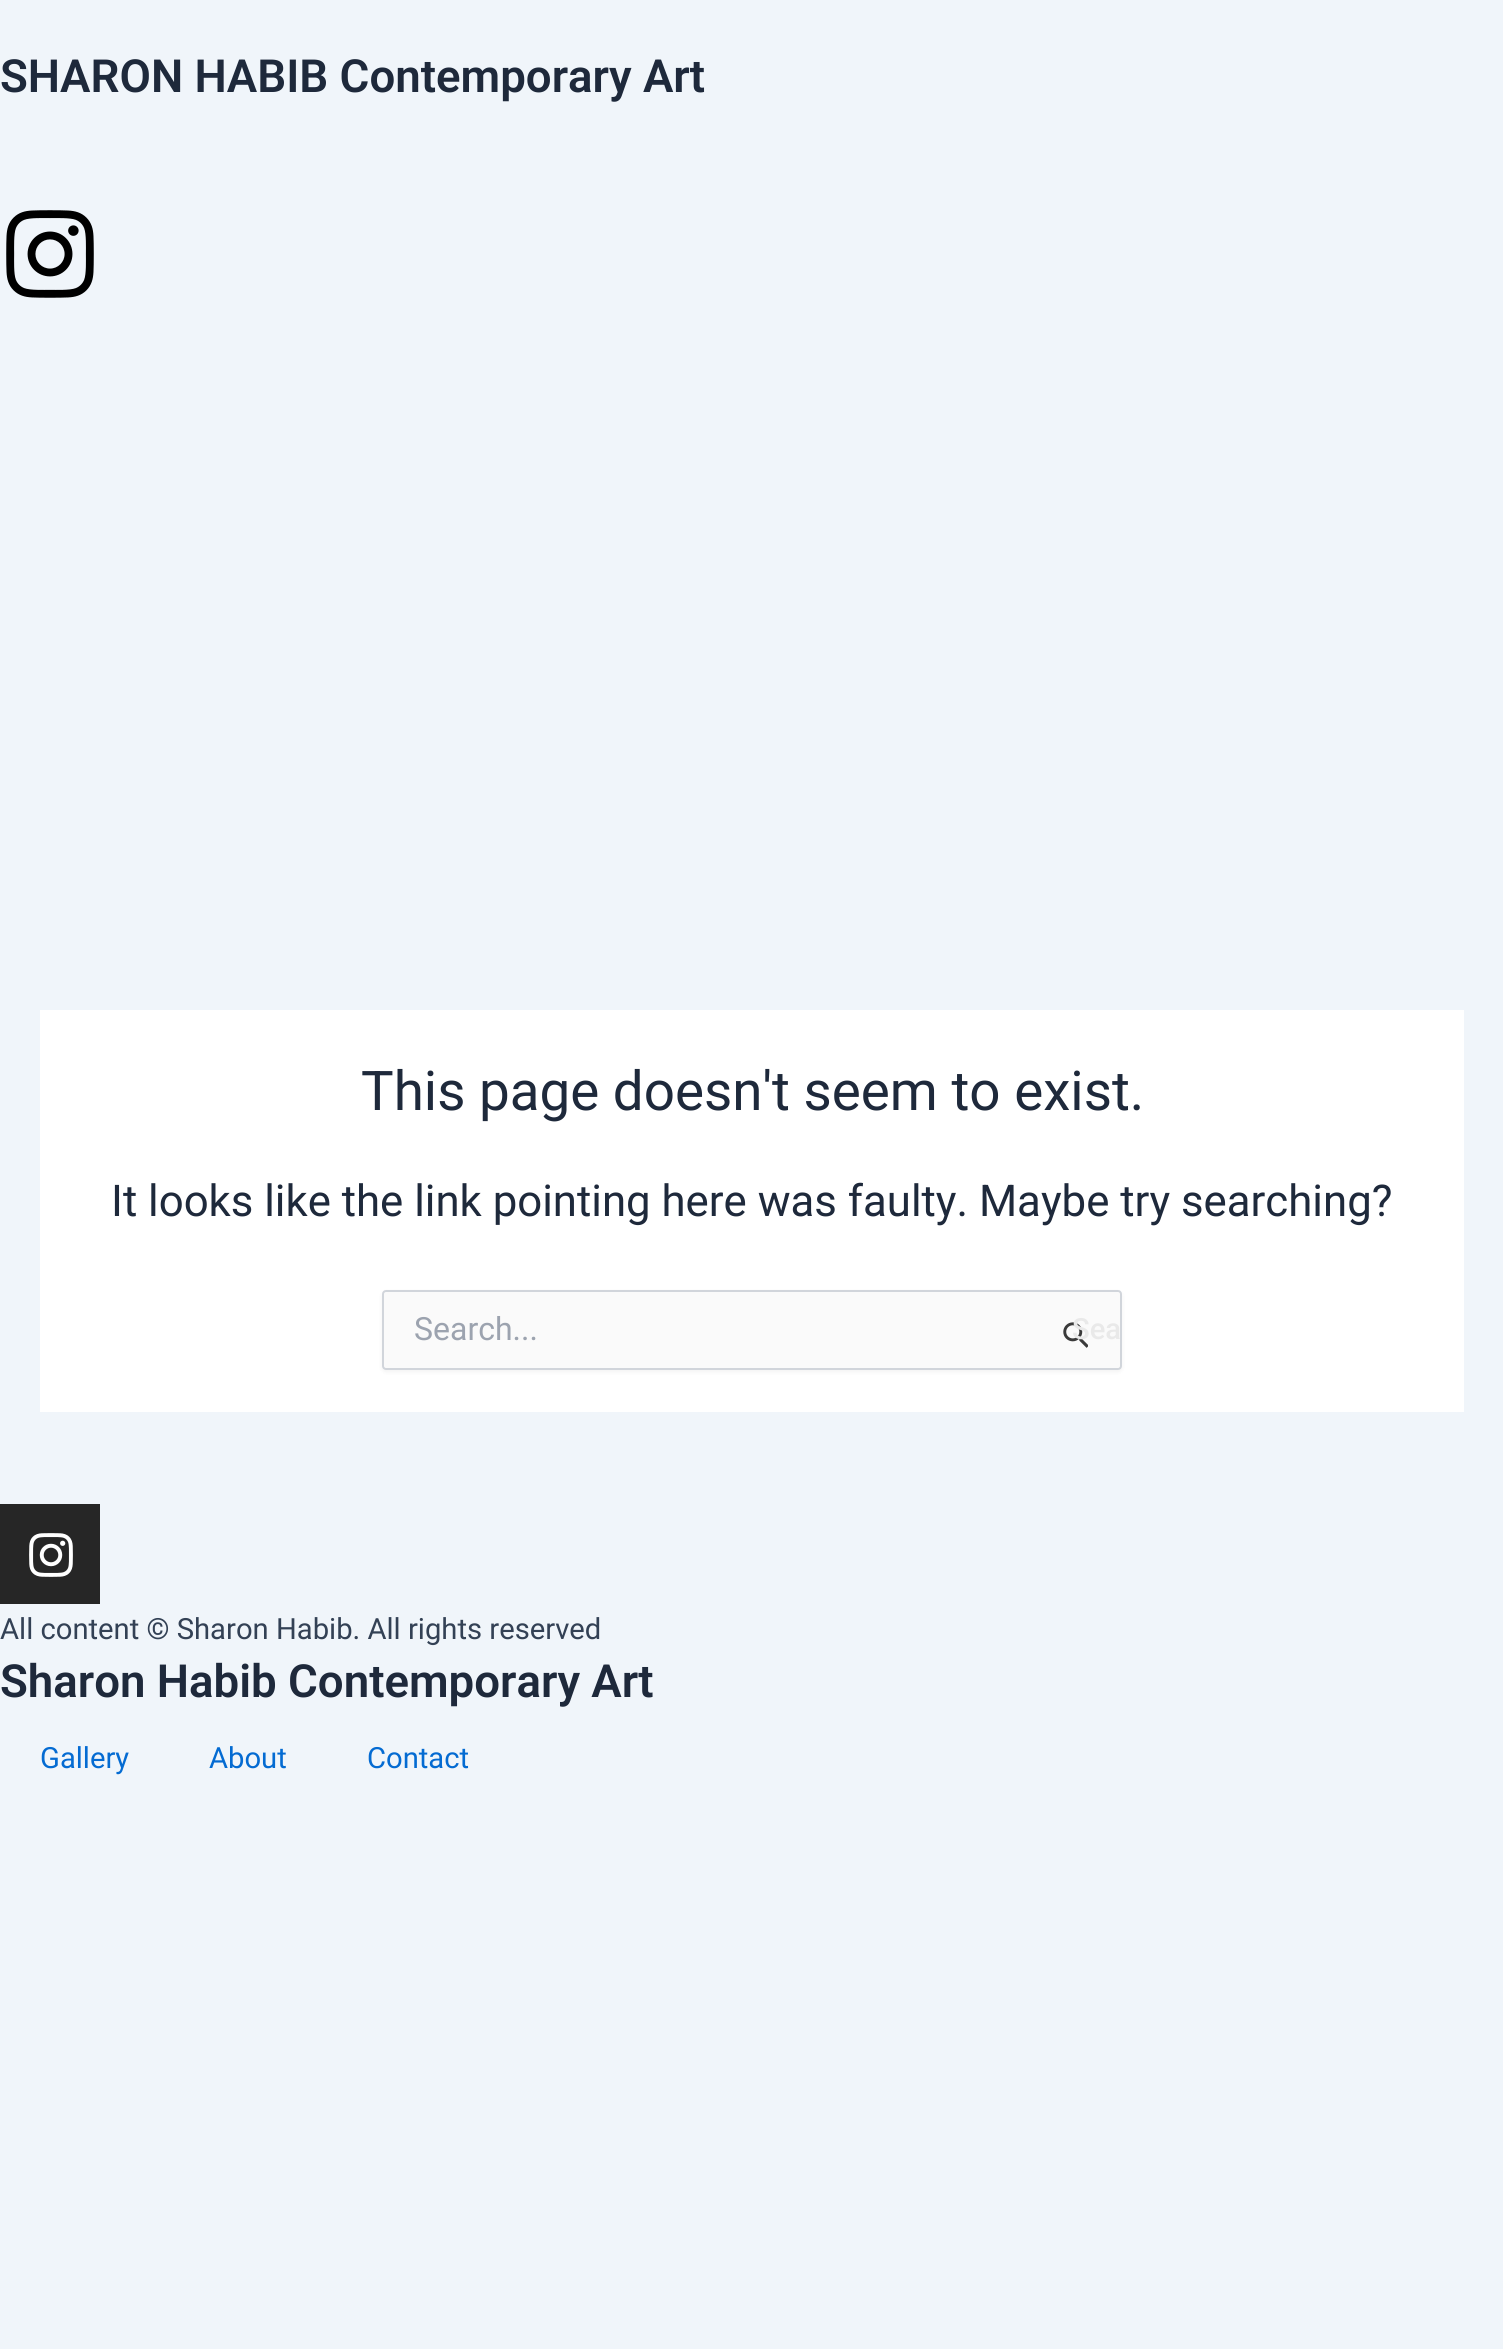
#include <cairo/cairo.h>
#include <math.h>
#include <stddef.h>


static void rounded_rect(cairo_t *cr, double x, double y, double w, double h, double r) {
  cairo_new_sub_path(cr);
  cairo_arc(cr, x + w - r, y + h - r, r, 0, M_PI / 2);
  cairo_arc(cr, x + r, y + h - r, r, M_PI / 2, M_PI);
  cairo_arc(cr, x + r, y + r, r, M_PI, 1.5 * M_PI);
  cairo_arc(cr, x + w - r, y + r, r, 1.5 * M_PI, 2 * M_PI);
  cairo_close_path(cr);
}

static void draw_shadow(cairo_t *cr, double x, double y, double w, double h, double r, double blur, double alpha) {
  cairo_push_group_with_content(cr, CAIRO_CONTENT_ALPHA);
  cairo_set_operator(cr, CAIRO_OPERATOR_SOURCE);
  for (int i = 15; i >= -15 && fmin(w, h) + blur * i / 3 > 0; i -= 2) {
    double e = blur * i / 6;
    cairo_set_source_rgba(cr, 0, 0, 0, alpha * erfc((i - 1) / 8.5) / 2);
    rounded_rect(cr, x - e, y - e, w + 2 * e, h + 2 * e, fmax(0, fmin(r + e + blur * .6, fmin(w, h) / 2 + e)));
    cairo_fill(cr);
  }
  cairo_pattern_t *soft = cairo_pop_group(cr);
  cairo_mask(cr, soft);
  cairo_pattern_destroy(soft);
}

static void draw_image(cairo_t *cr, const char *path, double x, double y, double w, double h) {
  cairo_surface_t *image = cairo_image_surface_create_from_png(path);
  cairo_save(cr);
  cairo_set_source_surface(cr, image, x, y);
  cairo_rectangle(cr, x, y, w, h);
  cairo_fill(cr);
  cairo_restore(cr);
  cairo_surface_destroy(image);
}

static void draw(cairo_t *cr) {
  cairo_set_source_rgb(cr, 240 / 255.0, 245 / 255.0, 250 / 255.0);
  cairo_paint(cr);
  draw_image(cr, "images/1.png", 6, 210, 88, 88);
  cairo_set_source_rgb(cr, 1, 1, 1);
  cairo_rectangle(cr, 40, 1010, 1424, 402);
  cairo_fill(cr);
  cairo_set_source_rgb(cr, 0, 0, 0);
  draw_shadow(cr, 382, 1292, 740, 80, 4, 2, 0.05);
  cairo_set_source_rgb(cr, 250 / 255.0, 250 / 255.0, 250 / 255.0);
  rounded_rect(cr, 383, 1291, 738, 78, 3);
  cairo_fill_preserve(cr);
  cairo_set_source_rgb(cr, 209 / 255.0, 213 / 255.0, 219 / 255.0);
  cairo_stroke(cr);
  draw_image(cr, "images/2.png", 1063, 1322, 25, 26);
  cairo_set_source_rgb(cr, 38 / 255.0, 38 / 255.0, 38 / 255.0);
  cairo_rectangle(cr, 0, 1504, 100, 100);
  cairo_fill(cr);
  draw_image(cr, "images/3.png", 29, 1533, 44, 44);
  cairo_select_font_face(cr, "Roboto SemiBold", CAIRO_FONT_SLANT_NORMAL, CAIRO_FONT_WEIGHT_NORMAL);
  cairo_set_font_size(cr, 45.6);
  cairo_set_source_rgb(cr, 30 / 255.0, 41 / 255.0, 59 / 255.0);
  cairo_move_to(cr, 0, 92);
  cairo_show_text(cr, "SHARON HABIB Contemporary Art");
  cairo_select_font_face(cr, "Roboto", CAIRO_FONT_SLANT_NORMAL, CAIRO_FONT_WEIGHT_NORMAL);
  cairo_set_font_size(cr, 54.75);
  cairo_move_to(cr, 361, 1110);
  cairo_show_text(cr, "This page doesn't seem to exist.");
  cairo_set_font_size(cr, 43.75);
  cairo_move_to(cr, 111, 1216);
  cairo_show_text(cr, "It looks like the link pointing here was faulty. Maybe try searching?");
  cairo_set_font_size(cr, 32);
  cairo_set_source_rgb(cr, 156 / 255.0, 163 / 255.0, 175 / 255.0);
  cairo_move_to(cr, 414, 1340);
  cairo_show_text(cr, "Search...");
  cairo_select_font_face(cr, "Roboto Medium", CAIRO_FONT_SLANT_NORMAL, CAIRO_FONT_WEIGHT_NORMAL);
  cairo_set_font_size(cr, 29.2);
  cairo_set_source_rgb(cr, 233 / 255.0, 233 / 255.0, 233 / 255.0);
  cairo_move_to(cr, 1072, 1339);
  cairo_show_text(cr, "Sea");
  cairo_select_font_face(cr, "Roboto", CAIRO_FONT_SLANT_NORMAL, CAIRO_FONT_WEIGHT_NORMAL);
  cairo_set_source_rgb(cr, 51 / 255.0, 65 / 255.0, 85 / 255.0);
  cairo_move_to(cr, 0, 1639);
  cairo_show_text(cr, "All content © Sharon Habib. All rights reserved");
  cairo_select_font_face(cr, "Roboto SemiBold", CAIRO_FONT_SLANT_NORMAL, CAIRO_FONT_WEIGHT_NORMAL);
  cairo_set_font_size(cr, 45.6);
  cairo_set_source_rgb(cr, 30 / 255.0, 41 / 255.0, 59 / 255.0);
  cairo_move_to(cr, 0, 1697);
  cairo_show_text(cr, "Sharon Habib Contemporary Art");
  cairo_select_font_face(cr, "Roboto", CAIRO_FONT_SLANT_NORMAL, CAIRO_FONT_WEIGHT_NORMAL);
  cairo_set_font_size(cr, 29.2);
  cairo_set_source_rgb(cr, 4 / 255.0, 107 / 255.0, 210 / 255.0);
  cairo_move_to(cr, 40, 1768);
  cairo_show_text(cr, "Gallery");
  cairo_move_to(cr, 209, 1768);
  cairo_show_text(cr, "About");
  cairo_move_to(cr, 367, 1768);
  cairo_show_text(cr, "Contact");
}

int main(void) {
  cairo_surface_t *surface = cairo_image_surface_create(CAIRO_FORMAT_RGB24, 1503, 2349);
  cairo_t *cr = cairo_create(surface);
  cairo_font_options_t *options = cairo_font_options_create();
  cairo_font_options_set_hint_metrics(options, CAIRO_HINT_METRICS_OFF);
  cairo_font_options_set_hint_style(options, CAIRO_HINT_STYLE_NONE);
  cairo_set_font_options(cr, options);
  cairo_set_miter_limit(cr, 4);
  draw(cr);
  cairo_surface_write_to_png(surface, "out.png");
  cairo_font_options_destroy(options);
  cairo_destroy(cr);
  cairo_surface_destroy(surface);
  return 0;
}
